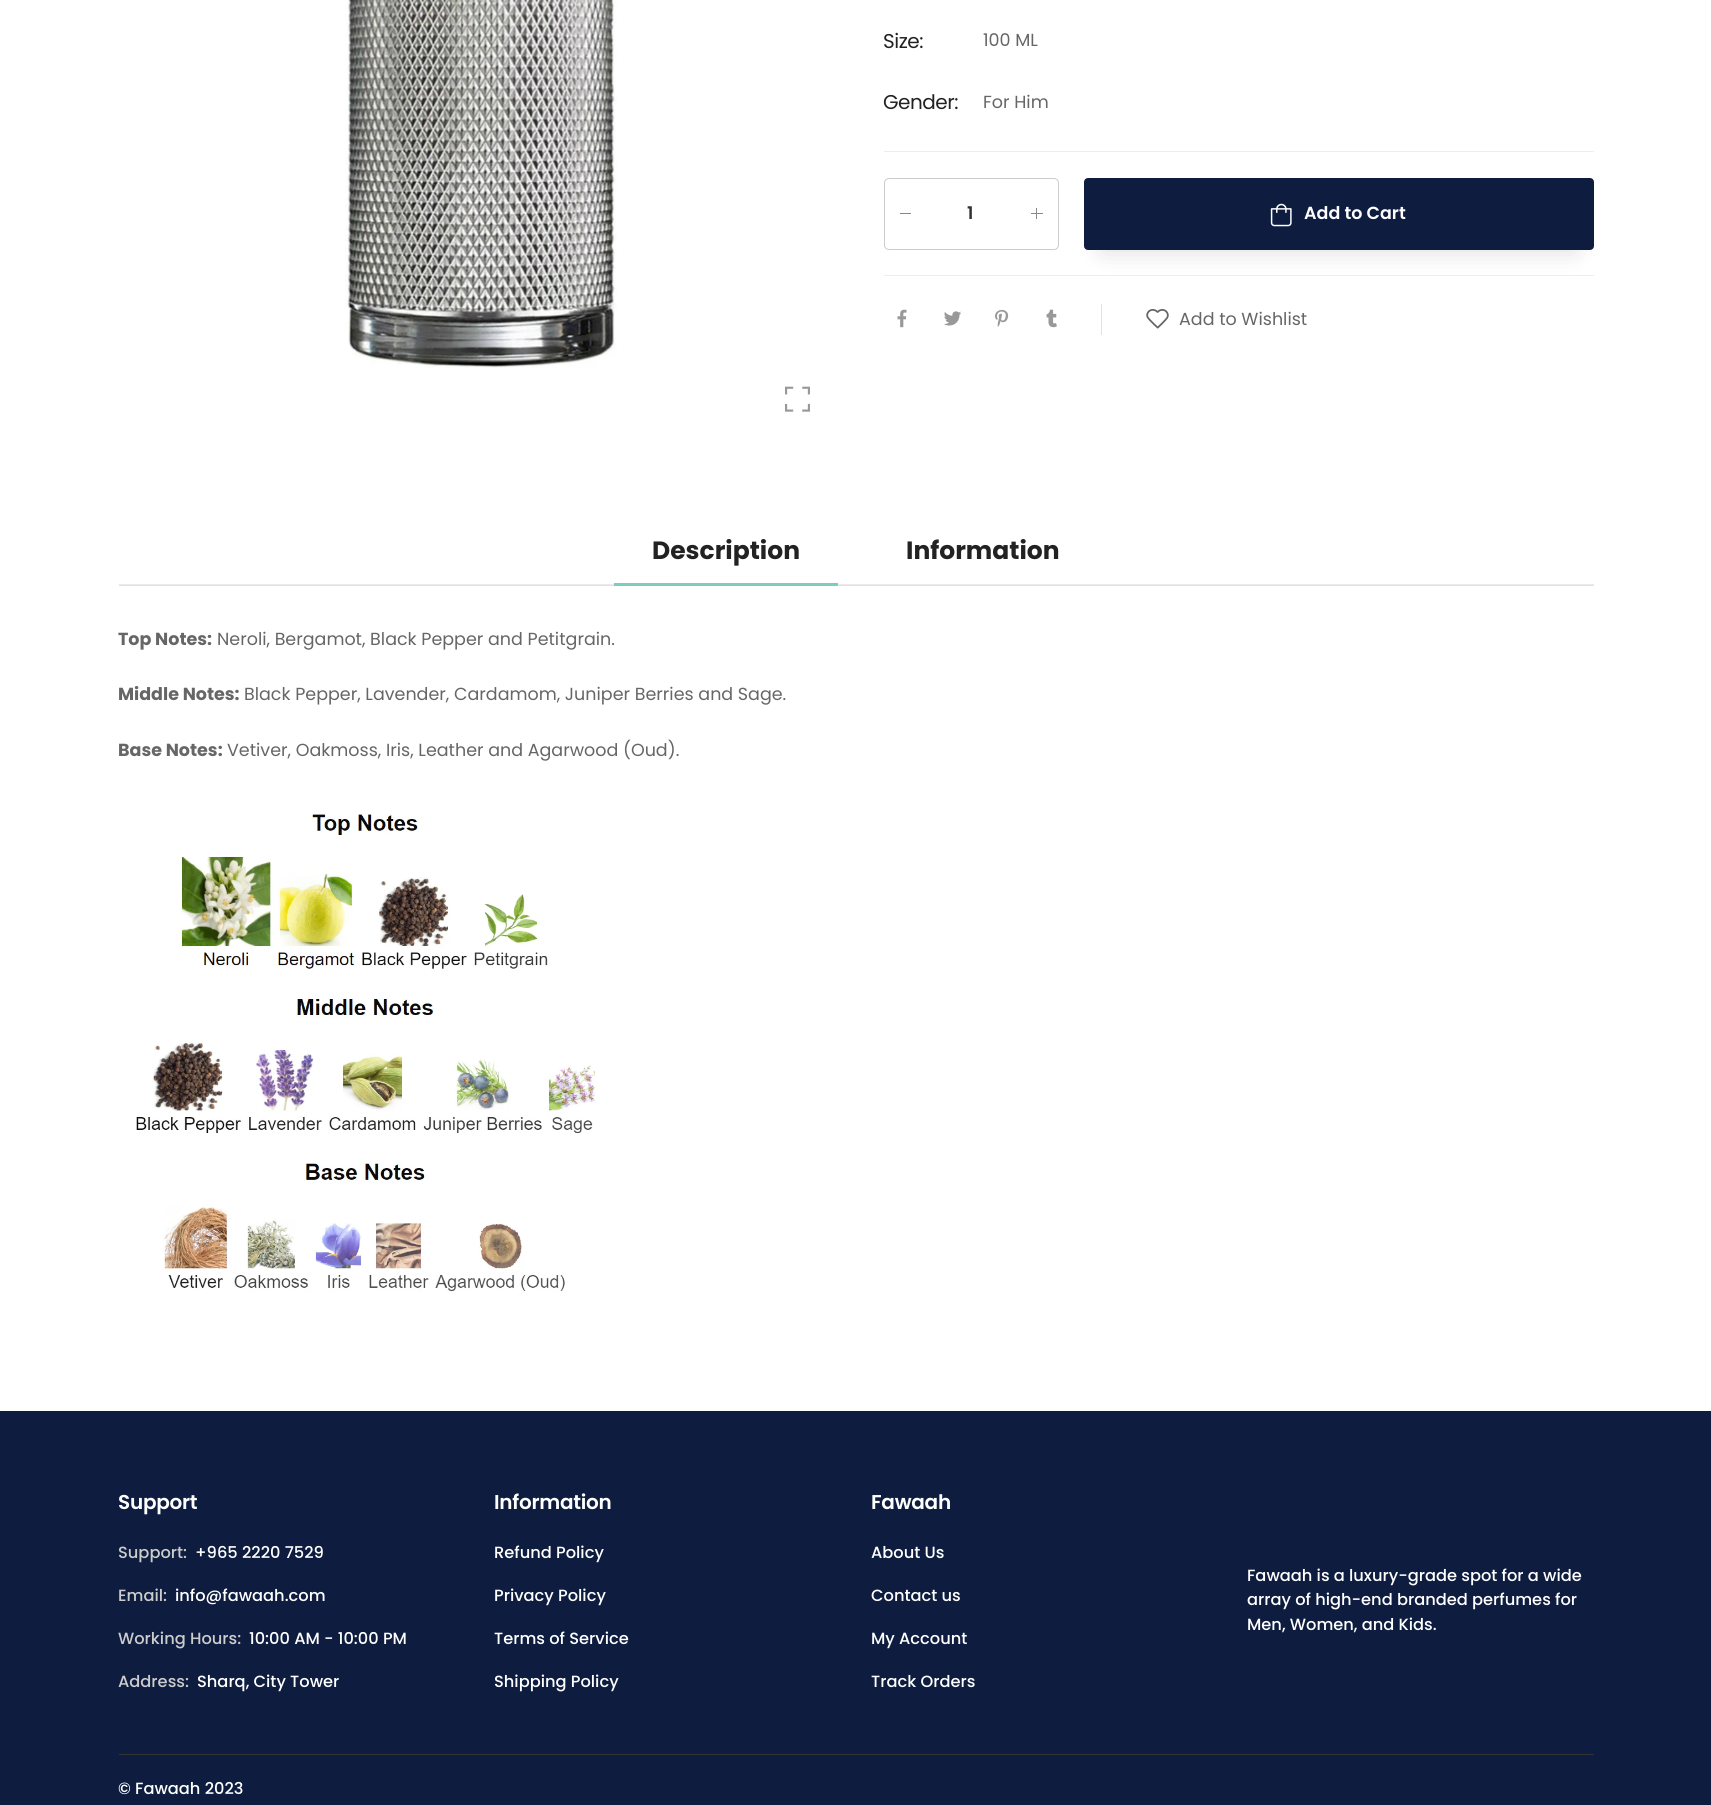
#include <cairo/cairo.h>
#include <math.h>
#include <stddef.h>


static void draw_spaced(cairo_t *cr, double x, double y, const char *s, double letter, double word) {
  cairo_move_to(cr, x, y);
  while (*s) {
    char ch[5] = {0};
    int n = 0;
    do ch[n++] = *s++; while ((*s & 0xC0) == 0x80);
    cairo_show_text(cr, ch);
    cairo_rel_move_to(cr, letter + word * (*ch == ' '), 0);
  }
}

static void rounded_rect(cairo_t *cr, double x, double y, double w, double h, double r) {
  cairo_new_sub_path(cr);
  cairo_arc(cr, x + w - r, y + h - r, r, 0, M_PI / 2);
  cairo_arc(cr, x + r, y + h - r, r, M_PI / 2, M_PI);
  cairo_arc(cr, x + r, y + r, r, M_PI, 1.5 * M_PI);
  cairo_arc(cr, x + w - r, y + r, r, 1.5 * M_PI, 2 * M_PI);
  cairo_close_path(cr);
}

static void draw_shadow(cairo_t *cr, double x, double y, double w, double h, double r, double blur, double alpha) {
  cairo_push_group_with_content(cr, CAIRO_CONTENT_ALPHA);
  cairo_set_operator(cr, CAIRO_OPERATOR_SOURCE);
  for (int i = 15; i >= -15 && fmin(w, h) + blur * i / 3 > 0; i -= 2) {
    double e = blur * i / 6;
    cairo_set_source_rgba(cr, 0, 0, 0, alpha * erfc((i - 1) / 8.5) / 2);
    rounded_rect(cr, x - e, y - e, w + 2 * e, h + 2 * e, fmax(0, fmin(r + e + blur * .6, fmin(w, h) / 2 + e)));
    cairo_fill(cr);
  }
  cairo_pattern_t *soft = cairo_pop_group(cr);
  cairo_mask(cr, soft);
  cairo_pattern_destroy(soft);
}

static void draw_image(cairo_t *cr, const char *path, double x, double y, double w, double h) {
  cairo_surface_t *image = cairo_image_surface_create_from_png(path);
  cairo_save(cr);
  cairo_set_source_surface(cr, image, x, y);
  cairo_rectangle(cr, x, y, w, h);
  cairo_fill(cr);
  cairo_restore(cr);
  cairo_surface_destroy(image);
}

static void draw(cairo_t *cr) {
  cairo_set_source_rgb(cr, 1, 1, 1);
  cairo_paint(cr);
  draw_image(cr, "images/1.png", 345, 0, 272, 368);
  draw_image(cr, "images/2.png", 785, 386, 25, 26);
  cairo_set_source_rgb(cr, 238 / 255.0, 238 / 255.0, 238 / 255.0);
  cairo_rectangle(cr, 884, 151, 710, 1);
  cairo_fill(cr);
  rounded_rect(cr, 884.5, 178.5, 174, 71, 4.5);
  cairo_set_source_rgb(cr, 204 / 255.0, 204 / 255.0, 204 / 255.0);
  cairo_set_line_width(cr, 1);
  cairo_stroke(cr);
  cairo_set_source_rgb(cr, 136 / 255.0, 136 / 255.0, 136 / 255.0);
  cairo_rectangle(cr, 900, 213, 11, 1);
  cairo_fill(cr);
  cairo_rectangle(cr, 1031, 213, 12, 1);
  cairo_fill(cr);
  cairo_rectangle(cr, 1036, 208, 1, 11);
  cairo_fill(cr);
  cairo_set_source_rgb(cr, 238 / 255.0, 238 / 255.0, 238 / 255.0);
  cairo_rectangle(cr, 884, 275, 710, 1);
  cairo_fill(cr);
  cairo_set_source_rgb(cr, 0, 0, 0);
  draw_shadow(cr, 1103, 215, 472, 35, 0, 12.5, 0.15);
  cairo_set_source_rgb(cr, 14 / 255.0, 29 / 255.0, 63 / 255.0);
  rounded_rect(cr, 1085.5, 179.5, 507, 69, 2.5);
  cairo_fill_preserve(cr);
  cairo_set_line_width(cr, 3);
  cairo_stroke(cr);
  draw_image(cr, "images/3.png", 1270, 203, 22, 24);
  draw_image(cr, "images/4.png", 897, 309, 10, 19);
  draw_image(cr, "images/5.png", 944, 311, 17, 15);
  draw_image(cr, "images/6.png", 995, 309, 14, 18);
  draw_image(cr, "images/7.png", 1046, 309, 11, 19);
  cairo_set_source_rgb(cr, 225 / 255.0, 225 / 255.0, 225 / 255.0);
  cairo_rectangle(cr, 1101, 304, 1, 31);
  cairo_fill(cr);
  draw_image(cr, "images/8.png", 1146, 309, 23, 20);
  cairo_set_source_rgb(cr, 235 / 255.0, 235 / 255.0, 235 / 255.0);
  cairo_rectangle(cr, 119, 584, 1475, 1);
  cairo_fill(cr);
  cairo_set_source_rgb(cr, 1, 1, 1);
  cairo_new_path(cr);
  cairo_move_to(cr, 619, 518);
  cairo_line_to(cr, 833, 518);
  cairo_curve_to(cr, 836, 518, 838, 520, 838, 523);
  cairo_line_to(cr, 838, 585);
  cairo_line_to(cr, 614, 585);
  cairo_line_to(cr, 614, 523);
  cairo_curve_to(cr, 614, 520, 616, 518, 619, 518);
  cairo_close_path(cr);
  cairo_fill(cr);
  cairo_set_source_rgb(cr, 222 / 255.0, 226 / 255.0, 230 / 255.0);
  cairo_rectangle(cr, 119, 585, 1475, 1);
  cairo_fill(cr);
  cairo_set_source_rgb(cr, 124 / 255.0, 205 / 255.0, 191 / 255.0);
  cairo_rectangle(cr, 614, 583, 224, 3);
  cairo_fill(cr);
  draw_image(cr, "images/9.png", 136, 811, 461, 481);
  cairo_set_source_rgb(cr, 14 / 255.0, 29 / 255.0, 63 / 255.0);
  cairo_rectangle(cr, 0, 1411, 1711, 394);
  cairo_fill(cr);
  cairo_set_source_rgb(cr, 51 / 255.0, 51 / 255.0, 51 / 255.0);
  cairo_rectangle(cr, 119, 1754, 1475, 1);
  cairo_fill(cr);
  cairo_select_font_face(cr, "Poppins", CAIRO_FONT_SLANT_NORMAL, CAIRO_FONT_WEIGHT_NORMAL);
  cairo_set_font_size(cr, 20);
  cairo_set_source_rgb(cr, 34 / 255.0, 34 / 255.0, 34 / 255.0);
  draw_spaced(cr, 883, 48, "Size:", -0.5, 0);
  cairo_set_font_size(cr, 17.5);
  cairo_set_source_rgb(cr, 102 / 255.0, 102 / 255.0, 102 / 255.0);
  cairo_move_to(cr, 983, 46);
  cairo_show_text(cr, "100 ML");
  cairo_set_font_size(cr, 20);
  cairo_set_source_rgb(cr, 34 / 255.0, 34 / 255.0, 34 / 255.0);
  draw_spaced(cr, 883, 109, "Gender:", -0.5, 0);
  cairo_set_font_size(cr, 17.5);
  cairo_set_source_rgb(cr, 102 / 255.0, 102 / 255.0, 102 / 255.0);
  cairo_move_to(cr, 983, 108);
  cairo_show_text(cr, "For Him");
  cairo_select_font_face(cr, "Poppins SemiBold", CAIRO_FONT_SLANT_NORMAL, CAIRO_FONT_WEIGHT_NORMAL);
  cairo_set_source_rgb(cr, 51 / 255.0, 51 / 255.0, 51 / 255.0);
  cairo_move_to(cr, 967, 219);
  cairo_show_text(cr, "1");
  cairo_set_source_rgb(cr, 1, 1, 1);
  cairo_move_to(cr, 1304, 219);
  cairo_show_text(cr, "Add to Cart");
  cairo_select_font_face(cr, "Poppins", CAIRO_FONT_SLANT_NORMAL, CAIRO_FONT_WEIGHT_NORMAL);
  cairo_set_source_rgb(cr, 102 / 255.0, 102 / 255.0, 102 / 255.0);
  cairo_move_to(cr, 1179, 325);
  cairo_show_text(cr, "Add to Wishlist");
  cairo_select_font_face(cr, "Poppins", CAIRO_FONT_SLANT_NORMAL, CAIRO_FONT_WEIGHT_BOLD);
  cairo_set_font_size(cr, 25);
  cairo_set_source_rgb(cr, 34 / 255.0, 34 / 255.0, 34 / 255.0);
  cairo_move_to(cr, 652, 559);
  cairo_show_text(cr, "Description");
  cairo_move_to(cr, 906, 559);
  cairo_show_text(cr, "Information");
  cairo_set_font_size(cr, 17.5);
  cairo_set_source_rgb(cr, 102 / 255.0, 102 / 255.0, 102 / 255.0);
  cairo_move_to(cr, 118, 645);
  cairo_show_text(cr, "Top Notes:");
  cairo_select_font_face(cr, "Poppins", CAIRO_FONT_SLANT_NORMAL, CAIRO_FONT_WEIGHT_NORMAL);
  cairo_move_to(cr, 217, 645);
  cairo_show_text(cr, "Neroli, Bergamot, Black Pepper and Petitgrain.");
  cairo_select_font_face(cr, "Poppins", CAIRO_FONT_SLANT_NORMAL, CAIRO_FONT_WEIGHT_BOLD);
  cairo_move_to(cr, 118, 700);
  cairo_show_text(cr, "Middle Notes:");
  cairo_select_font_face(cr, "Poppins", CAIRO_FONT_SLANT_NORMAL, CAIRO_FONT_WEIGHT_NORMAL);
  cairo_move_to(cr, 244, 700);
  cairo_show_text(cr, "Black Pepper, Lavender, Cardamom, Juniper Berries and Sage.");
  cairo_select_font_face(cr, "Poppins", CAIRO_FONT_SLANT_NORMAL, CAIRO_FONT_WEIGHT_BOLD);
  cairo_move_to(cr, 118, 756);
  cairo_show_text(cr, "Base Notes:");
  cairo_select_font_face(cr, "Poppins", CAIRO_FONT_SLANT_NORMAL, CAIRO_FONT_WEIGHT_NORMAL);
  cairo_move_to(cr, 227, 756);
  cairo_show_text(cr, "Vetiver, Oakmoss, Iris, Leather and Agarwood (Oud).");
  cairo_select_font_face(cr, "Poppins SemiBold", CAIRO_FONT_SLANT_NORMAL, CAIRO_FONT_WEIGHT_NORMAL);
  cairo_set_font_size(cr, 20);
  cairo_set_source_rgb(cr, 1, 1, 1);
  draw_spaced(cr, 118, 1509, "Support", -0.25, 0);
  cairo_select_font_face(cr, "Poppins Medium", CAIRO_FONT_SLANT_NORMAL, CAIRO_FONT_WEIGHT_NORMAL);
  cairo_set_font_size(cr, 16.25);
  cairo_set_source_rgb(cr, 204 / 255.0, 204 / 255.0, 204 / 255.0);
  cairo_move_to(cr, 118, 1558);
  cairo_show_text(cr, "Support:");
  cairo_set_source_rgb(cr, 1, 1, 1);
  cairo_move_to(cr, 195, 1558);
  cairo_show_text(cr, "+965 2220 7529");
  cairo_set_source_rgb(cr, 204 / 255.0, 204 / 255.0, 204 / 255.0);
  cairo_move_to(cr, 118, 1601);
  cairo_show_text(cr, "Email:");
  cairo_set_source_rgb(cr, 1, 1, 1);
  cairo_move_to(cr, 175, 1601);
  cairo_show_text(cr, "info@fawaah.com");
  cairo_set_source_rgb(cr, 204 / 255.0, 204 / 255.0, 204 / 255.0);
  cairo_move_to(cr, 118, 1644);
  cairo_show_text(cr, "Working Hours:");
  cairo_set_source_rgb(cr, 1, 1, 1);
  cairo_move_to(cr, 249, 1644);
  cairo_show_text(cr, "10:00 AM - 10:00 PM");
  cairo_set_source_rgb(cr, 204 / 255.0, 204 / 255.0, 204 / 255.0);
  cairo_move_to(cr, 118, 1687);
  cairo_show_text(cr, "Address:");
  cairo_set_source_rgb(cr, 1, 1, 1);
  cairo_move_to(cr, 197, 1687);
  cairo_show_text(cr, "Sharq, City Tower");
  cairo_select_font_face(cr, "Poppins SemiBold", CAIRO_FONT_SLANT_NORMAL, CAIRO_FONT_WEIGHT_NORMAL);
  cairo_set_font_size(cr, 20);
  draw_spaced(cr, 494, 1509, "Information", -0.25, 0);
  cairo_select_font_face(cr, "Poppins Medium", CAIRO_FONT_SLANT_NORMAL, CAIRO_FONT_WEIGHT_NORMAL);
  cairo_set_font_size(cr, 16.25);
  cairo_move_to(cr, 494, 1558);
  cairo_show_text(cr, "Refund Policy");
  cairo_move_to(cr, 494, 1601);
  cairo_show_text(cr, "Privacy Policy");
  cairo_move_to(cr, 494, 1644);
  cairo_show_text(cr, "Terms of Service");
  cairo_move_to(cr, 494, 1687);
  cairo_show_text(cr, "Shipping Policy");
  cairo_select_font_face(cr, "Poppins SemiBold", CAIRO_FONT_SLANT_NORMAL, CAIRO_FONT_WEIGHT_NORMAL);
  cairo_set_font_size(cr, 20);
  draw_spaced(cr, 871, 1509, "Fawaah", -0.25, 0);
  cairo_select_font_face(cr, "Poppins Medium", CAIRO_FONT_SLANT_NORMAL, CAIRO_FONT_WEIGHT_NORMAL);
  cairo_set_font_size(cr, 16.25);
  cairo_move_to(cr, 871, 1558);
  cairo_show_text(cr, "About Us");
  cairo_move_to(cr, 871, 1601);
  cairo_show_text(cr, "Contact us");
  cairo_move_to(cr, 871, 1644);
  cairo_show_text(cr, "My Account");
  cairo_move_to(cr, 871, 1687);
  cairo_show_text(cr, "Track Orders");
  cairo_move_to(cr, 1247, 1581);
  cairo_show_text(cr, "Fawaah is a luxury-grade spot for a wide");
  cairo_move_to(cr, 1247, 1605);
  cairo_show_text(cr, "array of high-end branded perfumes for");
  cairo_move_to(cr, 1247, 1630);
  cairo_show_text(cr, "Men, Women, and Kids.");
  cairo_move_to(cr, 118, 1794);
  cairo_show_text(cr, "© Fawaah 2023");
}

int main(void) {
  cairo_surface_t *surface = cairo_image_surface_create(CAIRO_FORMAT_RGB24, 1711, 1805);
  cairo_t *cr = cairo_create(surface);
  cairo_font_options_t *options = cairo_font_options_create();
  cairo_font_options_set_hint_metrics(options, CAIRO_HINT_METRICS_OFF);
  cairo_font_options_set_hint_style(options, CAIRO_HINT_STYLE_NONE);
  cairo_set_font_options(cr, options);
  cairo_set_miter_limit(cr, 4);
  draw(cr);
  cairo_surface_write_to_png(surface, "out.png");
  cairo_font_options_destroy(options);
  cairo_destroy(cr);
  cairo_surface_destroy(surface);
  return 0;
}
